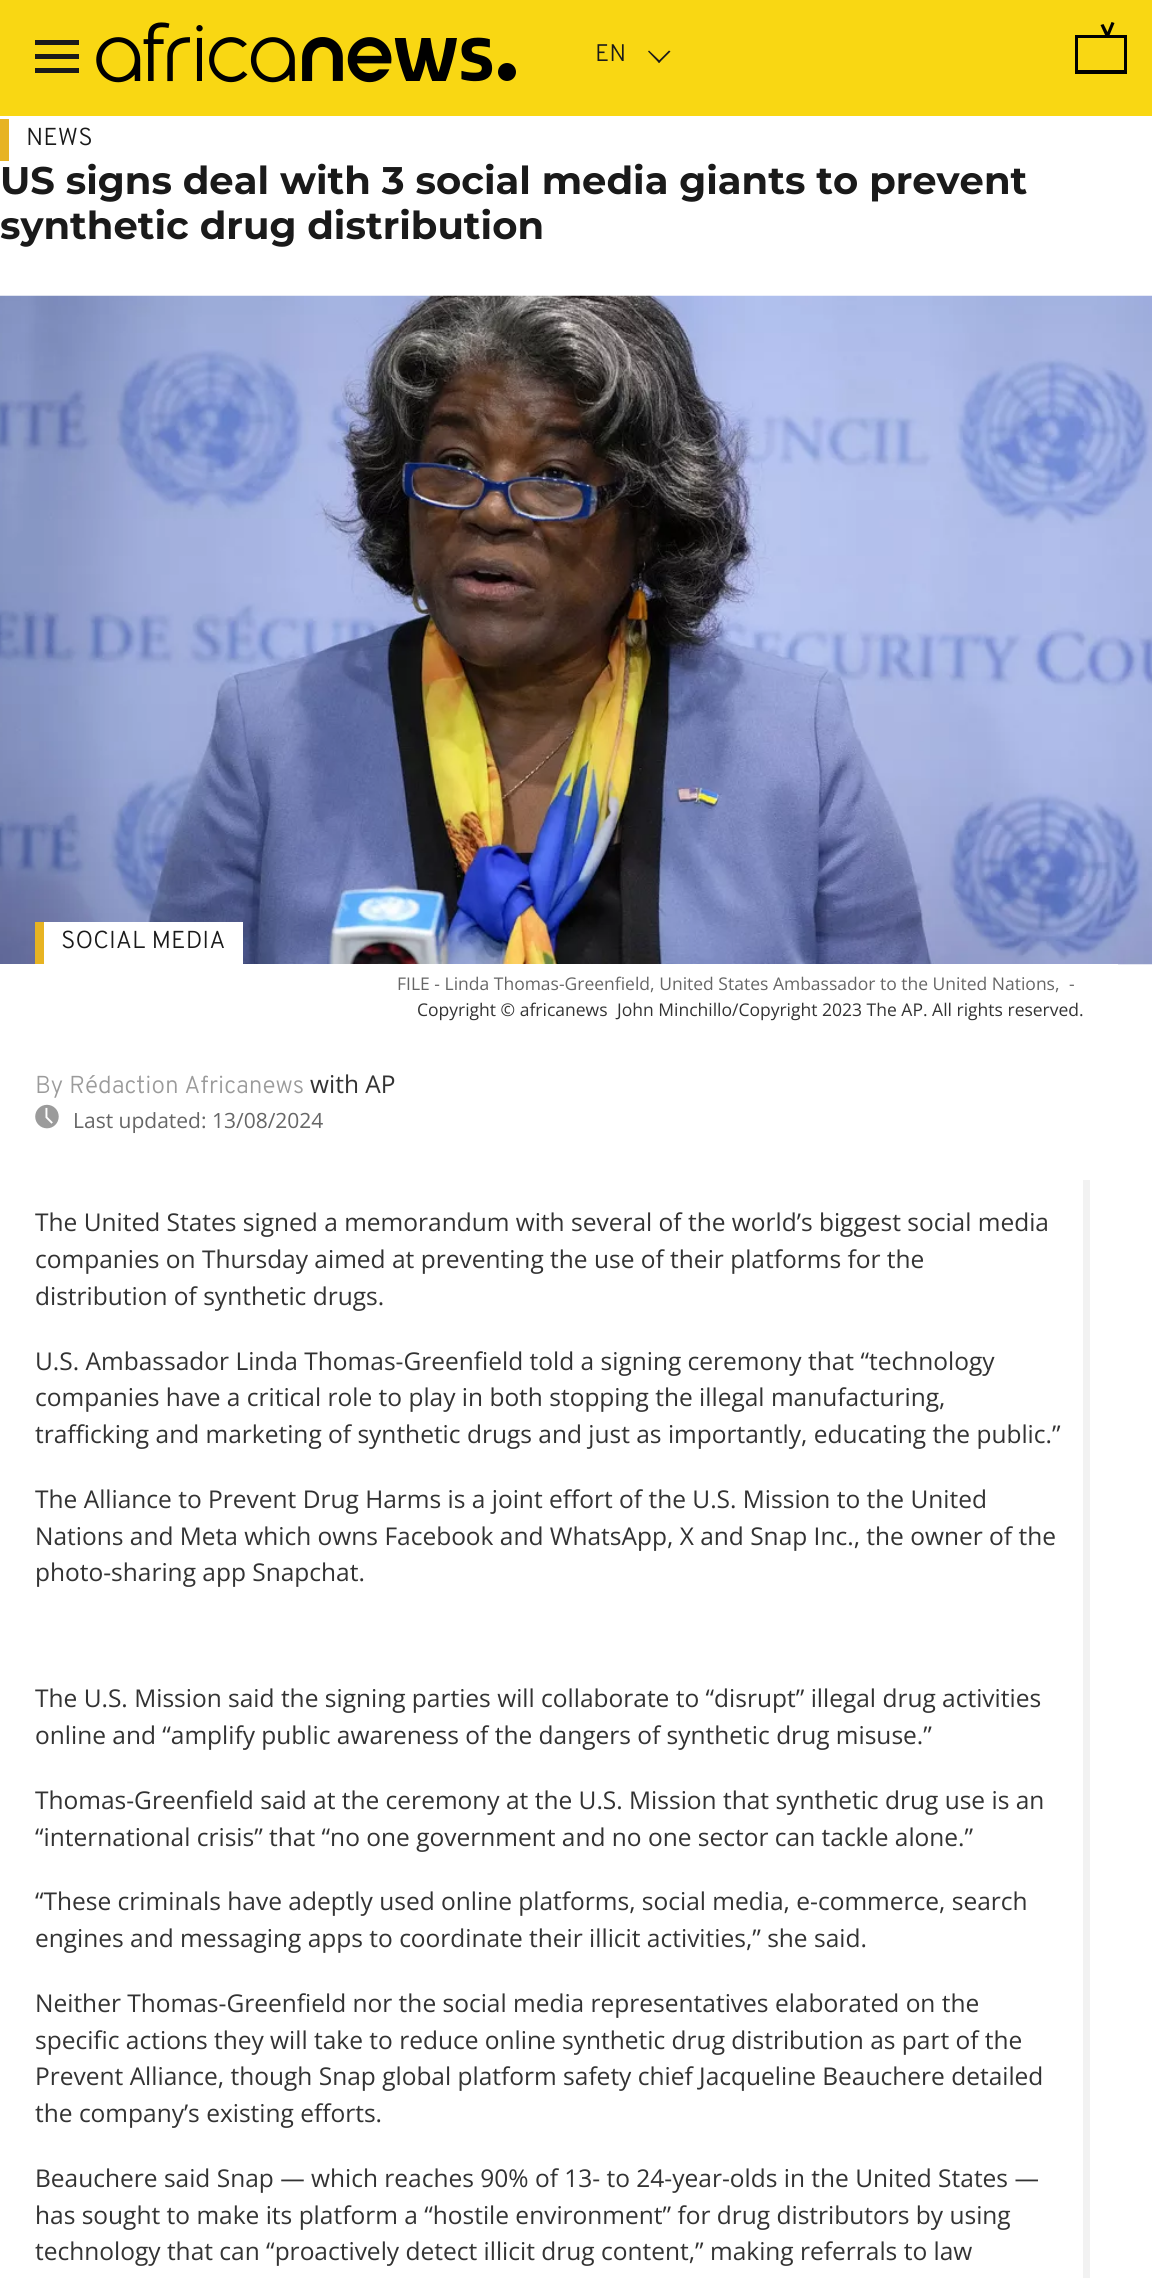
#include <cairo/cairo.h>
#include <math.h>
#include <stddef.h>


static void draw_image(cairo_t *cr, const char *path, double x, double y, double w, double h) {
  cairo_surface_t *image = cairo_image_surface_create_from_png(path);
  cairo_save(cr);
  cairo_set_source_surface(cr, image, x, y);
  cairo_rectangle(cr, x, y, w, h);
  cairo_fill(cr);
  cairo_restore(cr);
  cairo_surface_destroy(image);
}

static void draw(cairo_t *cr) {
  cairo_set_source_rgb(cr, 1, 1, 1);
  cairo_paint(cr);
  cairo_set_source_rgb(cr, 249 / 255.0, 215 / 255.0, 19 / 255.0);
  cairo_rectangle(cr, 0, 0, 1152, 116);
  cairo_fill(cr);
  cairo_set_source_rgb(cr, 26 / 255.0, 26 / 255.0, 26 / 255.0);
  cairo_rectangle(cr, 35, 54, 44, 5);
  cairo_fill(cr);
  cairo_rectangle(cr, 35, 40, 44, 5);
  cairo_fill(cr);
  cairo_rectangle(cr, 35, 68, 44, 5);
  cairo_fill(cr);
  draw_image(cr, "images/1.png", 96, 22, 420, 61);
  cairo_new_path(cr);
  cairo_move_to(cr, 658, 61.5);
  cairo_line_to(cr, 669, 50.5);
  cairo_line_to(cr, 670.5, 51.5);
  cairo_line_to(cr, 659, 63);
  cairo_close_path(cr);
  cairo_fill(cr);
  cairo_new_path(cr);
  cairo_move_to(cr, 648, 51.5);
  cairo_line_to(cr, 649, 50.5);
  cairo_line_to(cr, 660.5, 61.5);
  cairo_line_to(cr, 659, 63);
  cairo_close_path(cr);
  cairo_fill(cr);
  cairo_set_source_rgb(cr, 0, 0, 0);
  cairo_new_path(cr);
  cairo_move_to(cr, 1127, 74);
  cairo_line_to(cr, 1075, 74);
  cairo_line_to(cr, 1075, 35);
  cairo_line_to(cr, 1127, 35);
  cairo_close_path(cr);
  cairo_move_to(cr, 1078, 70);
  cairo_line_to(cr, 1124, 70);
  cairo_line_to(cr, 1124, 38);
  cairo_line_to(cr, 1078, 38);
  cairo_close_path(cr);
  cairo_fill(cr);
  cairo_new_path(cr);
  cairo_move_to(cr, 1106, 37);
  cairo_line_to(cr, 1100.5, 25);
  cairo_line_to(cr, 1103.5, 24);
  cairo_line_to(cr, 1107.5, 32);
  cairo_line_to(cr, 1111.5, 22);
  cairo_line_to(cr, 1114.5, 23);
  cairo_line_to(cr, 1109, 36.5);
  cairo_close_path(cr);
  cairo_fill(cr);
  cairo_set_source_rgb(cr, 231 / 255.0, 179 / 255.0, 34 / 255.0);
  cairo_rectangle(cr, 0, 119, 9, 42);
  cairo_fill(cr);
  draw_image(cr, "images/2.png", 0, 295, 1152, 670);
  cairo_set_source_rgb(cr, 1, 1, 1);
  cairo_rectangle(cr, 0, 964, 1118, 1);
  cairo_fill(cr);
  cairo_rectangle(cr, 44, 922, 199, 42);
  cairo_fill(cr);
  cairo_set_source_rgb(cr, 231 / 255.0, 179 / 255.0, 34 / 255.0);
  cairo_rectangle(cr, 35, 922, 9, 42);
  cairo_fill(cr);
  cairo_set_source_rgb(cr, 242 / 255.0, 242 / 255.0, 242 / 255.0);
  cairo_new_path(cr);
  cairo_move_to(cr, 42, 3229);
  cairo_line_to(cr, 1090, 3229);
  cairo_line_to(cr, 1090, 1180);
  cairo_line_to(cr, 1083, 1180);
  cairo_line_to(cr, 1083, 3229);
  cairo_close_path(cr);
  cairo_fill(cr);
  draw_image(cr, "images/3.png", 35, 1104, 24, 25);
  cairo_select_font_face(cr, "Overpass Light", CAIRO_FONT_SLANT_NORMAL, CAIRO_FONT_WEIGHT_NORMAL);
  cairo_set_font_size(cr, 24);
  cairo_set_source_rgb(cr, 26 / 255.0, 26 / 255.0, 26 / 255.0);
  cairo_move_to(cr, 595, 61);
  cairo_show_text(cr, "EN");
  cairo_set_font_size(cr, 24.5);
  cairo_move_to(cr, 26, 145);
  cairo_show_text(cr, "NEWS");
  cairo_select_font_face(cr, "Montserrat Thin", CAIRO_FONT_SLANT_NORMAL, CAIRO_FONT_WEIGHT_NORMAL);
  cairo_set_font_size(cr, 38.5);
  cairo_move_to(cr, 0, 194);
  cairo_show_text(cr, "US signs deal with 3 social media giants to prevent");
  cairo_move_to(cr, 0, 239);
  cairo_show_text(cr, "synthetic drug distribution");
  cairo_select_font_face(cr, "Overpass Light", CAIRO_FONT_SLANT_NORMAL, CAIRO_FONT_WEIGHT_NORMAL);
  cairo_set_font_size(cr, 24.5);
  cairo_move_to(cr, 61, 948);
  cairo_show_text(cr, "SOCIAL MEDIA");
  cairo_select_font_face(cr, "Open Sans", CAIRO_FONT_SLANT_NORMAL, CAIRO_FONT_WEIGHT_NORMAL);
  cairo_set_source_rgb(cr, 51 / 255.0, 51 / 255.0, 51 / 255.0);
  cairo_move_to(cr, 35, 1231);
  cairo_show_text(cr, "The United States signed a memorandum with several of the world’s biggest social media");
  cairo_move_to(cr, 35, 1268);
  cairo_show_text(cr, "companies on Thursday aimed at preventing the use of their platforms for the");
  cairo_move_to(cr, 35, 1305);
  cairo_show_text(cr, "distribution of synthetic drugs.");
  cairo_move_to(cr, 35, 1370);
  cairo_show_text(cr, "U.S. Ambassador Linda Thomas-Greenfield told a signing ceremony that “technology");
  cairo_move_to(cr, 35, 1406);
  cairo_show_text(cr, "companies have a critical role to play in both stopping the illegal manufacturing,");
  cairo_move_to(cr, 35, 1443);
  cairo_show_text(cr, "trafficking and marketing of synthetic drugs and just as importantly, educating the public.”");
  cairo_move_to(cr, 35, 1508);
  cairo_show_text(cr, "The Alliance to Prevent Drug Harms is a joint effort of the U.S. Mission to the United");
  cairo_move_to(cr, 35, 1545);
  cairo_show_text(cr, "Nations and Meta which owns Facebook and WhatsApp, X and Snap Inc., the owner of the");
  cairo_move_to(cr, 35, 1581);
  cairo_show_text(cr, "photo-sharing app Snapchat.");
  cairo_move_to(cr, 35, 1707);
  cairo_show_text(cr, "The U.S. Mission said the signing parties will collaborate to “disrupt” illegal drug activities");
  cairo_move_to(cr, 35, 1744);
  cairo_show_text(cr, "online and “amplify public awareness of the dangers of synthetic drug misuse.”");
  cairo_move_to(cr, 35, 1809);
  cairo_show_text(cr, "Thomas-Greenfield said at the ceremony at the U.S. Mission that synthetic drug use is an");
  cairo_move_to(cr, 35, 1846);
  cairo_show_text(cr, "“international crisis” that “no one government and no one sector can tackle alone.”");
  cairo_move_to(cr, 35, 1910);
  cairo_show_text(cr, "“These criminals have adeptly used online platforms, social media, e-commerce, search");
  cairo_move_to(cr, 35, 1947);
  cairo_show_text(cr, "engines and messaging apps to coordinate their illicit activities,” she said.");
  cairo_move_to(cr, 35, 2012);
  cairo_show_text(cr, "Neither Thomas-Greenfield nor the social media representatives elaborated on the");
  cairo_move_to(cr, 35, 2049);
  cairo_show_text(cr, "specific actions they will take to reduce online synthetic drug distribution as part of the");
  cairo_move_to(cr, 35, 2085);
  cairo_show_text(cr, "Prevent Alliance, though Snap global platform safety chief Jacqueline Beauchere detailed");
  cairo_move_to(cr, 35, 2122);
  cairo_show_text(cr, "the company’s existing efforts.");
  cairo_move_to(cr, 35, 2187);
  cairo_show_text(cr, "Beauchere said Snap — which reaches 90% of 13- to 24-year-olds in the United States —");
  cairo_move_to(cr, 35, 2224);
  cairo_show_text(cr, "has sought to make its platform a “hostile environment” for drug distributors by using");
  cairo_move_to(cr, 35, 2260);
  cairo_show_text(cr, "technology that can “proactively detect illicit drug content,” making referrals to law");
  cairo_set_font_size(cr, 17.5);
  cairo_set_source_rgb(cr, 102 / 255.0, 102 / 255.0, 102 / 255.0);
  cairo_move_to(cr, 397, 990);
  cairo_show_text(cr, "FILE - Linda Thomas-Greenfield, United States Ambassador to the United Nations,");
  cairo_move_to(cr, 1069, 990);
  cairo_show_text(cr, "-");
  cairo_set_source_rgb(cr, 51 / 255.0, 51 / 255.0, 51 / 255.0);
  cairo_move_to(cr, 417, 1016);
  cairo_show_text(cr, "Copyright © africanews");
  cairo_move_to(cr, 617, 1016);
  cairo_show_text(cr, "John Minchillo/Copyright 2023 The AP. All rights reserved.");
  cairo_select_font_face(cr, "Overpass Light", CAIRO_FONT_SLANT_NORMAL, CAIRO_FONT_WEIGHT_NORMAL);
  cairo_set_font_size(cr, 24.5);
  cairo_set_source_rgb(cr, 155 / 255.0, 155 / 255.0, 155 / 255.0);
  cairo_move_to(cr, 35, 1093);
  cairo_show_text(cr, "By Rédaction Africanews");
  cairo_select_font_face(cr, "Open Sans", CAIRO_FONT_SLANT_NORMAL, CAIRO_FONT_WEIGHT_NORMAL);
  cairo_set_source_rgb(cr, 51 / 255.0, 51 / 255.0, 51 / 255.0);
  cairo_move_to(cr, 310, 1093);
  cairo_show_text(cr, "with AP");
  cairo_set_font_size(cr, 21);
  cairo_set_source_rgb(cr, 102 / 255.0, 102 / 255.0, 102 / 255.0);
  cairo_move_to(cr, 73, 1128);
  cairo_show_text(cr, "Last updated: 13/08/2024");
}

int main(void) {
  cairo_surface_t *surface = cairo_image_surface_create(CAIRO_FORMAT_RGB24, 1152, 2278);
  cairo_t *cr = cairo_create(surface);
  cairo_font_options_t *options = cairo_font_options_create();
  cairo_font_options_set_hint_metrics(options, CAIRO_HINT_METRICS_OFF);
  cairo_font_options_set_hint_style(options, CAIRO_HINT_STYLE_NONE);
  cairo_set_font_options(cr, options);
  cairo_set_miter_limit(cr, 4);
  draw(cr);
  cairo_surface_write_to_png(surface, "out.png");
  cairo_font_options_destroy(options);
  cairo_destroy(cr);
  cairo_surface_destroy(surface);
  return 0;
}
